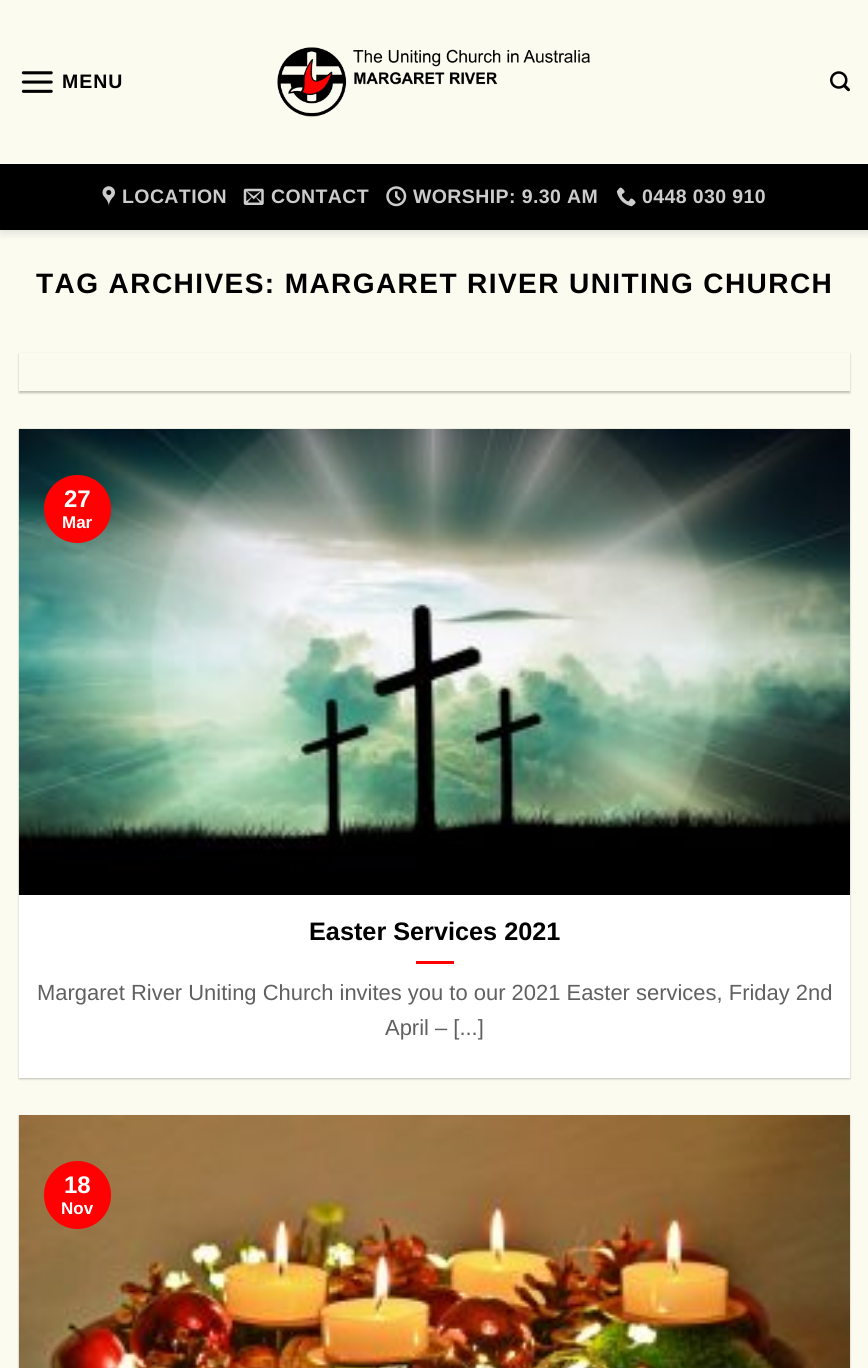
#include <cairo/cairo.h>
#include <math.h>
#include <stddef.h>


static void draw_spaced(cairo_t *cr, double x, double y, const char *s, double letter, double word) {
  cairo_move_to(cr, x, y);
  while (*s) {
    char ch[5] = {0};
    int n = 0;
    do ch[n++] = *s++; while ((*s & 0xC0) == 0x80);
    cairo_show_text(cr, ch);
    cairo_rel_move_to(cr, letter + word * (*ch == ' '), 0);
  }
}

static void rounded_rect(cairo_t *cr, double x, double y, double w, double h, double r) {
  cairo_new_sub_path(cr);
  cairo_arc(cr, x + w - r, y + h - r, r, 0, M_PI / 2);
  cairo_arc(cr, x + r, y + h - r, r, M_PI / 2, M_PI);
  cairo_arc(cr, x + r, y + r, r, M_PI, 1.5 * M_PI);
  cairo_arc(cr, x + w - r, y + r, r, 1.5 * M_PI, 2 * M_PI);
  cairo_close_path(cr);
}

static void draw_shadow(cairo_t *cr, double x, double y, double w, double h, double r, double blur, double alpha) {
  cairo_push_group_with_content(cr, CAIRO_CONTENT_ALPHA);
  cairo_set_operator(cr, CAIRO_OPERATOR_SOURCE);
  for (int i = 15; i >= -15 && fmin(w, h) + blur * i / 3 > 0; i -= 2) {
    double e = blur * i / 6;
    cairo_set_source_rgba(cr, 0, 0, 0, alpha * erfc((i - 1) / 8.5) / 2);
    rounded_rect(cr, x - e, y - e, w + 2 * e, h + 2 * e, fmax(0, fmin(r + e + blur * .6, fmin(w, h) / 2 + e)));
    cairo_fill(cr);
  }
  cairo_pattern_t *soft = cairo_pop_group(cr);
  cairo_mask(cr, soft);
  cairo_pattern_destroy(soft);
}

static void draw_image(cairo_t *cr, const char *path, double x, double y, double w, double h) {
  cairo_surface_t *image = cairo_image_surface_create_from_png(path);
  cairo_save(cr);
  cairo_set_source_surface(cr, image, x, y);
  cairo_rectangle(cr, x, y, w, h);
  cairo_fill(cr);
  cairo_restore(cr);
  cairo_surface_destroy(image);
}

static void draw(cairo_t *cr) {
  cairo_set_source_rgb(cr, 251 / 255.0, 251 / 255.0, 240 / 255.0);
  cairo_paint(cr);
  cairo_save(cr);
  cairo_rectangle(cr, 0, 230, 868, 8);
  cairo_clip(cr);
  cairo_set_source_rgb(cr, 0, 0, 0);
  draw_shadow(cr, 1, 1, 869, 230, 0, 6, 0.15);
  cairo_restore(cr);
  draw_image(cr, "images/1.png", 21, 71, 32, 22);
  draw_image(cr, "images/2.png", 277, 47, 313, 70);
  draw_image(cr, "images/3.png", 830, 71, 20, 21);
  cairo_set_source_rgb(cr, 0, 0, 0);
  cairo_rectangle(cr, 0, 164, 868, 66);
  cairo_fill(cr);
  draw_image(cr, "images/4.png", 102, 186, 13, 20);
  draw_image(cr, "images/5.png", 243, 188, 21, 17);
  draw_image(cr, "images/6.png", 386, 186, 21, 21);
  draw_image(cr, "images/7.png", 616, 187, 20, 20);
  cairo_save(cr);
  cairo_set_fill_rule(cr, CAIRO_FILL_RULE_EVEN_ODD);
  cairo_new_path(cr);
  cairo_move_to(cr, 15, 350);
  cairo_line_to(cr, 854, 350);
  cairo_line_to(cr, 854, 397);
  cairo_line_to(cr, 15, 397);
  cairo_close_path(cr);
  cairo_move_to(cr, 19, 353);
  cairo_line_to(cr, 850, 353);
  cairo_line_to(cr, 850, 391);
  cairo_line_to(cr, 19, 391);
  cairo_close_path(cr);
  cairo_clip(cr);
  cairo_set_source_rgb(cr, 0, 0, 0);
  draw_shadow(cr, 19, 354, 831, 39, 0, 1, 0.24);
  cairo_restore(cr);
  cairo_set_source_rgb(cr, 0, 0, 0);
  draw_shadow(cr, 19, 430, 831, 649, 0, 1, 0.24);
  cairo_set_source_rgb(cr, 1, 1, 1);
  cairo_rectangle(cr, 19, 895, 831, 183);
  cairo_fill(cr);
  draw_image(cr, "images/8.png", 18, 428, 832, 467);
  cairo_set_source_rgb(cr, 1, 1 / 255.0, 2 / 255.0);
  rounded_rect(cr, 44, 475, 67, 68, 33.5);
  cairo_fill(cr);
  cairo_rectangle(cr, 416, 961, 38, 3);
  cairo_fill(cr);
  cairo_set_source_rgb(cr, 0, 0, 0);
  draw_shadow(cr, 19, 1116, 831, 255, 0, 1, 0.24);
  draw_image(cr, "images/9.png", 18, 1115, 832, 253);
  cairo_set_source_rgb(cr, 1, 1 / 255.0, 2 / 255.0);
  rounded_rect(cr, 44, 1161, 67, 68, 33.5);
  cairo_fill(cr);
  cairo_select_font_face(cr, "Liberation Sans", CAIRO_FONT_SLANT_NORMAL, CAIRO_FONT_WEIGHT_BOLD);
  cairo_set_font_size(cr, 19.5);
  cairo_set_source_rgb(cr, 0, 0, 0);
  draw_spaced(cr, 62, 88, "MENU", 1, 0);
  cairo_set_source_rgb(cr, 204 / 255.0, 204 / 255.0, 204 / 255.0);
  draw_spaced(cr, 122, 203, "LOCATION", 0.4, 0);
  draw_spaced(cr, 271, 203, "CONTACT", 0.4, 0);
  draw_spaced(cr, 413, 203, "WORSHIP: 9.30 AM", 0.4, 0);
  draw_spaced(cr, 642, 203, "0448 030 910", 0.4, 0);
  cairo_set_font_size(cr, 28.05);
  cairo_set_source_rgb(cr, 0, 0, 0);
  draw_spaced(cr, 36, 293, "TAG ARCHIVES: MARGARET RIVER UNITING CHURCH", 1.4, 0);
  cairo_set_font_size(cr, 24);
  cairo_set_source_rgb(cr, 1, 1, 1);
  cairo_move_to(cr, 64, 507);
  cairo_show_text(cr, "27");
  cairo_set_font_size(cr, 17);
  cairo_move_to(cr, 62, 528);
  cairo_show_text(cr, "Mar");
  cairo_set_font_size(cr, 25.25);
  cairo_set_source_rgb(cr, 0, 0, 0);
  cairo_move_to(cr, 309, 940);
  cairo_show_text(cr, "Easter Services 2021");
  cairo_select_font_face(cr, "Liberation Sans", CAIRO_FONT_SLANT_NORMAL, CAIRO_FONT_WEIGHT_NORMAL);
  cairo_set_font_size(cr, 21.95);
  cairo_set_source_rgb(cr, 96 / 255.0, 96 / 255.0, 96 / 255.0);
  cairo_move_to(cr, 37, 1000);
  cairo_show_text(cr, "Margaret River Uniting Church invites you to our 2021 Easter services, Friday 2nd");
  cairo_move_to(cr, 385, 1035);
  cairo_show_text(cr, "April – [...]");
  cairo_select_font_face(cr, "Liberation Sans", CAIRO_FONT_SLANT_NORMAL, CAIRO_FONT_WEIGHT_BOLD);
  cairo_set_font_size(cr, 24);
  cairo_set_source_rgb(cr, 1, 1, 1);
  cairo_move_to(cr, 64, 1193);
  cairo_show_text(cr, "18");
  cairo_set_font_size(cr, 17);
  cairo_move_to(cr, 61, 1214);
  cairo_show_text(cr, "Nov");
}

int main(void) {
  cairo_surface_t *surface = cairo_image_surface_create(CAIRO_FORMAT_RGB24, 868, 1368);
  cairo_t *cr = cairo_create(surface);
  cairo_font_options_t *options = cairo_font_options_create();
  cairo_font_options_set_hint_metrics(options, CAIRO_HINT_METRICS_OFF);
  cairo_font_options_set_hint_style(options, CAIRO_HINT_STYLE_NONE);
  cairo_set_font_options(cr, options);
  cairo_set_miter_limit(cr, 4);
  draw(cr);
  cairo_surface_write_to_png(surface, "out.png");
  cairo_font_options_destroy(options);
  cairo_destroy(cr);
  cairo_surface_destroy(surface);
  return 0;
}
